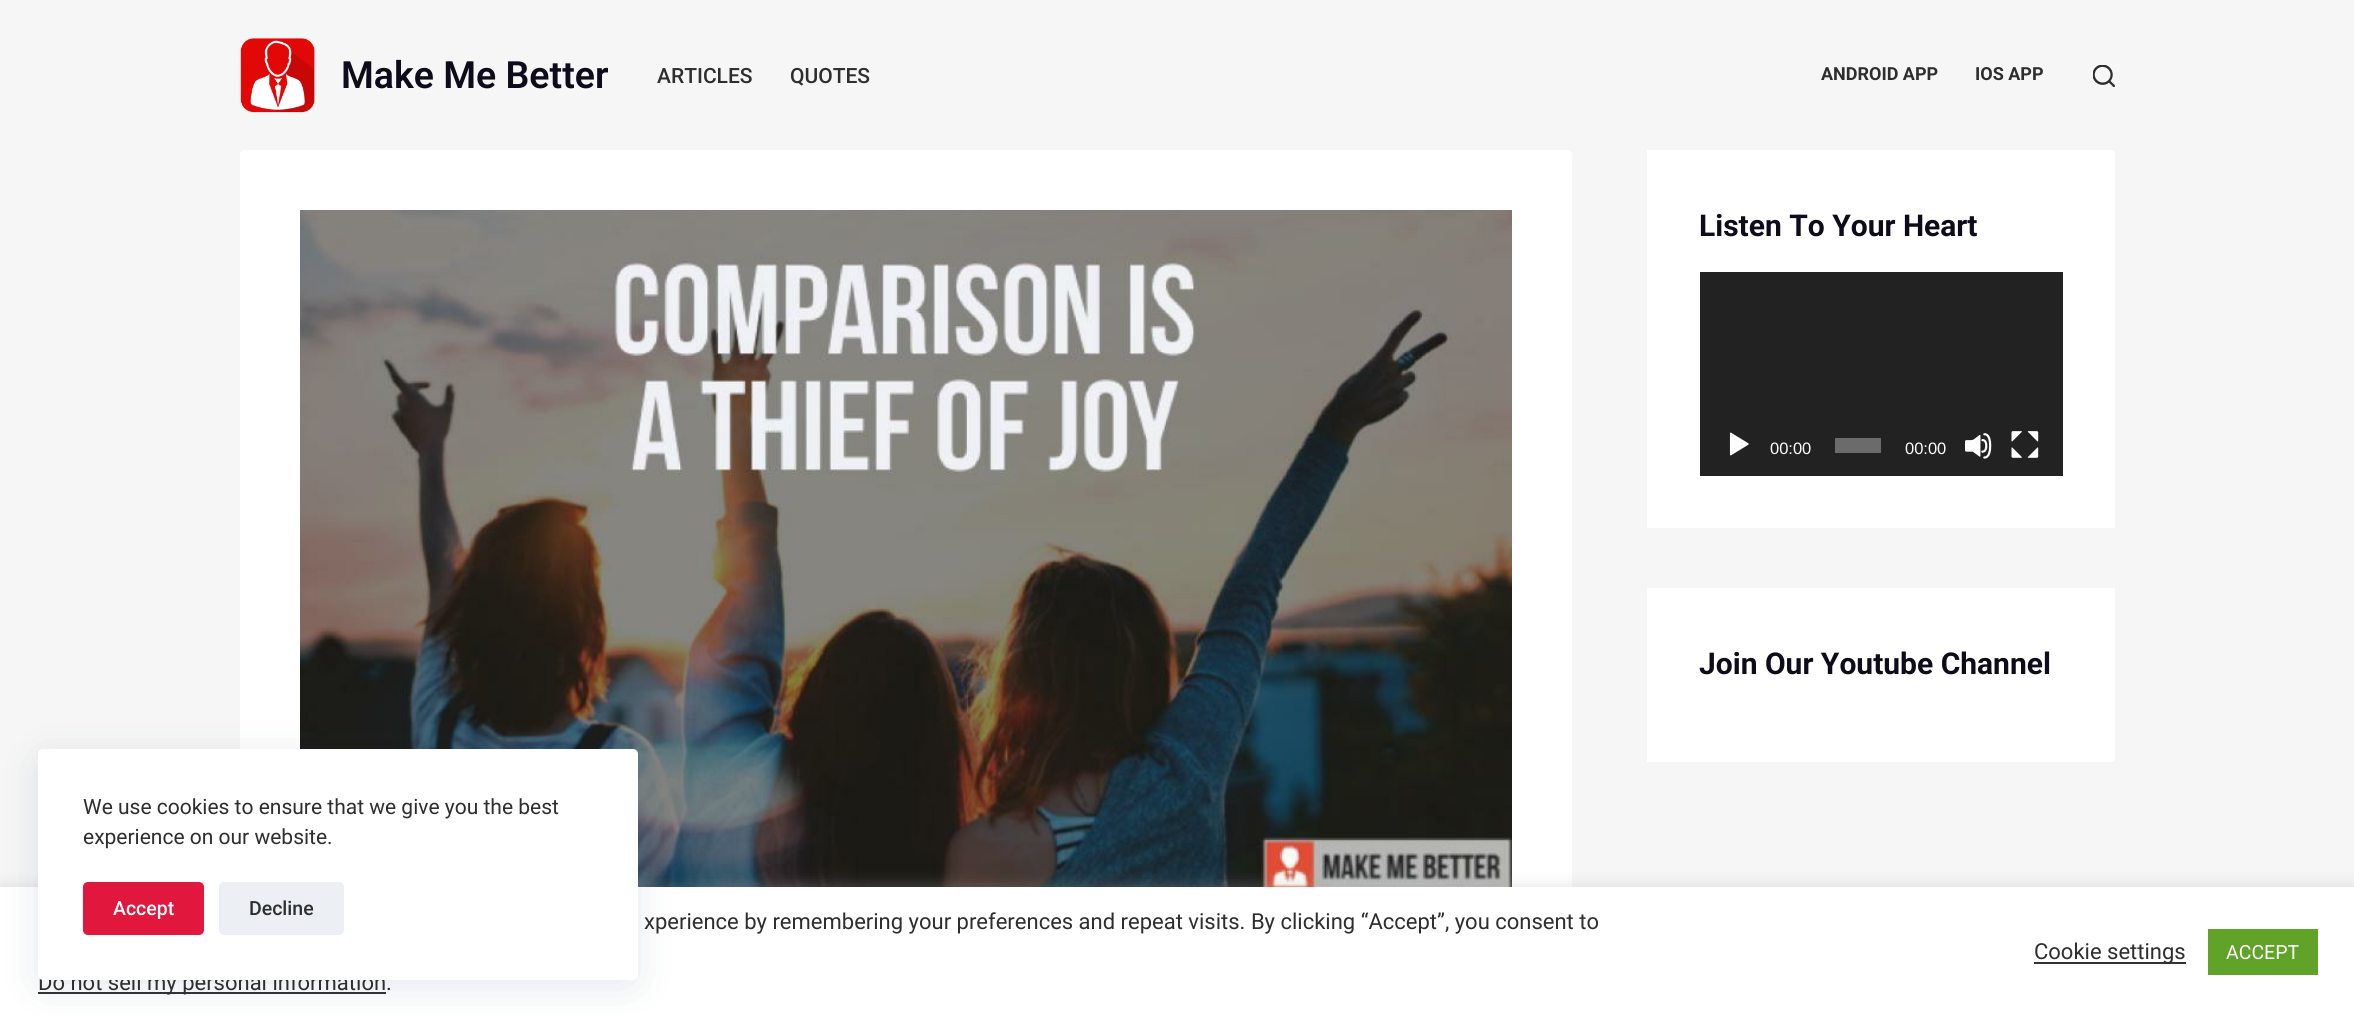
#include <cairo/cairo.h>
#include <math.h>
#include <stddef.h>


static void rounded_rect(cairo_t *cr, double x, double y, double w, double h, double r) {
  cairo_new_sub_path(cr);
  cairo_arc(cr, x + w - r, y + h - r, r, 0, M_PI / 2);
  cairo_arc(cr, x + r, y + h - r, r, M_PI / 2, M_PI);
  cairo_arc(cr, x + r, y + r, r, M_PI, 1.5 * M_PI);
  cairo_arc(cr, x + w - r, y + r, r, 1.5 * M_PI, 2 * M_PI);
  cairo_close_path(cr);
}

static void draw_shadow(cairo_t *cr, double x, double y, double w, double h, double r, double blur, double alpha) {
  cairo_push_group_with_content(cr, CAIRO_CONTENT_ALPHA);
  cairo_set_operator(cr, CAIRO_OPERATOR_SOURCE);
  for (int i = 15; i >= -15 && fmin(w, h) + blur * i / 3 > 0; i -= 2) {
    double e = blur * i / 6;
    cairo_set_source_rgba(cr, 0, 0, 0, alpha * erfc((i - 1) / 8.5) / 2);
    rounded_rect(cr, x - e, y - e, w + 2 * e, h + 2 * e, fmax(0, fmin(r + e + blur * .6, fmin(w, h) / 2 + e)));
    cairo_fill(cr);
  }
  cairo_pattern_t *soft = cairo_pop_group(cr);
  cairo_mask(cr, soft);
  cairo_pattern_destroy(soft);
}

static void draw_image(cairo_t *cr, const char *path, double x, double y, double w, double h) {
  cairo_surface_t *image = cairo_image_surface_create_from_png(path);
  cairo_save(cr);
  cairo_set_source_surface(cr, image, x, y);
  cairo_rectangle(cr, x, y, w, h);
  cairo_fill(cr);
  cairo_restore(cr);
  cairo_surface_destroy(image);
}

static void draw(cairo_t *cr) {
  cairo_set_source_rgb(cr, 246 / 255.0, 246 / 255.0, 246 / 255.0);
  cairo_paint(cr);
  draw_image(cr, "images/1.png", 240, 38, 75, 75);
  draw_image(cr, "images/2.png", 2093, 65, 22, 22);
  cairo_set_source_rgb(cr, 1, 1, 1);
  rounded_rect(cr, 240, 150, 1332, 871, 5);
  cairo_fill(cr);
  draw_image(cr, "images/3.png", 300, 210, 1212, 677);
  cairo_rectangle(cr, 1647, 150, 468, 378);
  cairo_fill(cr);
  cairo_set_source_rgb(cr, 34 / 255.0, 34 / 255.0, 34 / 255.0);
  cairo_rectangle(cr, 1700, 272, 363, 204);
  cairo_fill(cr);
  draw_image(cr, "images/4.png", 1729, 432, 20, 24);
  cairo_set_source_rgb(cr, 107 / 255.0, 107 / 255.0, 107 / 255.0);
  cairo_rectangle(cr, 1835, 438, 46, 15);
  cairo_fill(cr);
  draw_image(cr, "images/5.png", 1965, 433, 27, 26);
  draw_image(cr, "images/6.png", 2011, 431, 28, 27);
  cairo_set_source_rgb(cr, 1, 1, 1);
  cairo_rectangle(cr, 1647, 588, 468, 174);
  cairo_fill(cr);
  cairo_set_source_rgb(cr, 172 / 255.0, 171 / 255.0, 171 / 255.0);
  draw_shadow(cr, 0, 885, 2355, 131, 0, 7.5, 0.3);
  cairo_set_source_rgb(cr, 1, 1, 1);
  cairo_rectangle(cr, 0, 887, 2354, 129);
  cairo_fill(cr);
  cairo_set_source_rgb(cr, 51 / 255.0, 51 / 255.0, 51 / 255.0);
  cairo_rectangle(cr, 38, 992, 348, 2);
  cairo_fill(cr);
  cairo_set_source_rgb(cr, 34 / 255.0, 56 / 255.0, 101 / 255.0);
  draw_shadow(cr, 45, 764, 585, 216, 0, 22.5, 0.15);
  cairo_set_source_rgb(cr, 51 / 255.0, 51 / 255.0, 51 / 255.0);
  cairo_rectangle(cr, 2034, 962, 152, 2);
  cairo_fill(cr);
  cairo_set_source_rgb(cr, 97 / 255.0, 162 / 255.0, 41 / 255.0);
  cairo_rectangle(cr, 2208, 929, 110, 46);
  cairo_fill(cr);
  cairo_select_font_face(cr, "Roboto SemiBold", CAIRO_FONT_SLANT_NORMAL, CAIRO_FONT_WEIGHT_NORMAL);
  cairo_set_font_size(cr, 37.5);
  cairo_set_source_rgb(cr, 14 / 255.0, 12 / 255.0, 27 / 255.0);
  cairo_move_to(cr, 341, 88);
  cairo_show_text(cr, "Make Me Better");
  cairo_select_font_face(cr, "Roboto Medium", CAIRO_FONT_SLANT_NORMAL, CAIRO_FONT_WEIGHT_NORMAL);
  cairo_set_font_size(cr, 21);
  cairo_set_source_rgb(cr, 46 / 255.0, 46 / 255.0, 46 / 255.0);
  cairo_move_to(cr, 657, 83);
  cairo_show_text(cr, "ARTICLES");
  cairo_move_to(cr, 790, 83);
  cairo_show_text(cr, "QUOTES");
  cairo_select_font_face(cr, "Roboto", CAIRO_FONT_SLANT_NORMAL, CAIRO_FONT_WEIGHT_BOLD);
  cairo_set_font_size(cr, 18);
  cairo_move_to(cr, 1821, 80);
  cairo_show_text(cr, "ANDROID APP");
  cairo_move_to(cr, 1975, 80);
  cairo_show_text(cr, "IOS APP");
  cairo_set_font_size(cr, 30);
  cairo_set_source_rgb(cr, 14 / 255.0, 12 / 255.0, 27 / 255.0);
  cairo_move_to(cr, 1699, 236);
  cairo_show_text(cr, "Listen To Your Heart");
  cairo_select_font_face(cr, "Liberation Sans", CAIRO_FONT_SLANT_NORMAL, CAIRO_FONT_WEIGHT_NORMAL);
  cairo_set_font_size(cr, 16.5);
  cairo_set_source_rgb(cr, 1, 1, 1);
  cairo_move_to(cr, 1770, 454);
  cairo_show_text(cr, "00:00");
  cairo_move_to(cr, 1905, 454);
  cairo_show_text(cr, "00:00");
  cairo_select_font_face(cr, "Roboto", CAIRO_FONT_SLANT_NORMAL, CAIRO_FONT_WEIGHT_BOLD);
  cairo_set_font_size(cr, 30);
  cairo_set_source_rgb(cr, 14 / 255.0, 12 / 255.0, 27 / 255.0);
  cairo_move_to(cr, 1699, 674);
  cairo_show_text(cr, "Join Our Youtube Channel");
  cairo_select_font_face(cr, "Roboto", CAIRO_FONT_SLANT_NORMAL, CAIRO_FONT_WEIGHT_NORMAL);
  cairo_set_font_size(cr, 22);
  cairo_set_source_rgb(cr, 46 / 255.0, 46 / 255.0, 46 / 255.0);
  cairo_move_to(cr, 644, 929);
  cairo_show_text(cr, "xperience by remembering your preferences and repeat visits. By clicking “Accept”, you consent to");
  cairo_move_to(cr, 38, 990);
  cairo_show_text(cr, "Do not sell my personal information.");
  cairo_set_source_rgb(cr, 1, 1, 1);
  rounded_rect(cr, 38, 749, 600, 231, 5);
  cairo_fill(cr);
  cairo_set_source_rgb(cr, 236 / 255.0, 239 / 255.0, 243 / 255.0);
  rounded_rect(cr, 219, 882, 125, 53, 5);
  cairo_fill(cr);
  cairo_select_font_face(cr, "Roboto Medium", CAIRO_FONT_SLANT_NORMAL, CAIRO_FONT_WEIGHT_NORMAL);
  cairo_set_font_size(cr, 19.5);
  cairo_set_source_rgb(cr, 46 / 255.0, 46 / 255.0, 46 / 255.0);
  cairo_move_to(cr, 249, 915);
  cairo_show_text(cr, "Decline");
  cairo_set_source_rgb(cr, 225 / 255.0, 23 / 255.0, 61 / 255.0);
  rounded_rect(cr, 83, 882, 121, 53, 5);
  cairo_fill(cr);
  cairo_set_source_rgb(cr, 1, 1, 1);
  cairo_move_to(cr, 113, 915);
  cairo_show_text(cr, "Accept");
  cairo_select_font_face(cr, "Roboto", CAIRO_FONT_SLANT_NORMAL, CAIRO_FONT_WEIGHT_NORMAL);
  cairo_set_font_size(cr, 21);
  cairo_set_source_rgb(cr, 46 / 255.0, 46 / 255.0, 46 / 255.0);
  cairo_move_to(cr, 83, 844);
  cairo_show_text(cr, "experience on our website.");
  cairo_move_to(cr, 83, 814);
  cairo_show_text(cr, "We use cookies to ensure that we give you the best");
  cairo_set_font_size(cr, 22);
  cairo_move_to(cr, 2034, 959);
  cairo_show_text(cr, "Cookie settings");
  cairo_set_font_size(cr, 19.5);
  cairo_set_source_rgb(cr, 1, 1, 1);
  cairo_move_to(cr, 2226, 959);
  cairo_show_text(cr, "ACCEPT");
}

int main(void) {
  cairo_surface_t *surface = cairo_image_surface_create(CAIRO_FORMAT_RGB24, 2354, 1016);
  cairo_t *cr = cairo_create(surface);
  cairo_font_options_t *options = cairo_font_options_create();
  cairo_font_options_set_hint_metrics(options, CAIRO_HINT_METRICS_OFF);
  cairo_font_options_set_hint_style(options, CAIRO_HINT_STYLE_NONE);
  cairo_set_font_options(cr, options);
  cairo_set_miter_limit(cr, 4);
  draw(cr);
  cairo_surface_write_to_png(surface, "out.png");
  cairo_font_options_destroy(options);
  cairo_destroy(cr);
  cairo_surface_destroy(surface);
  return 0;
}
